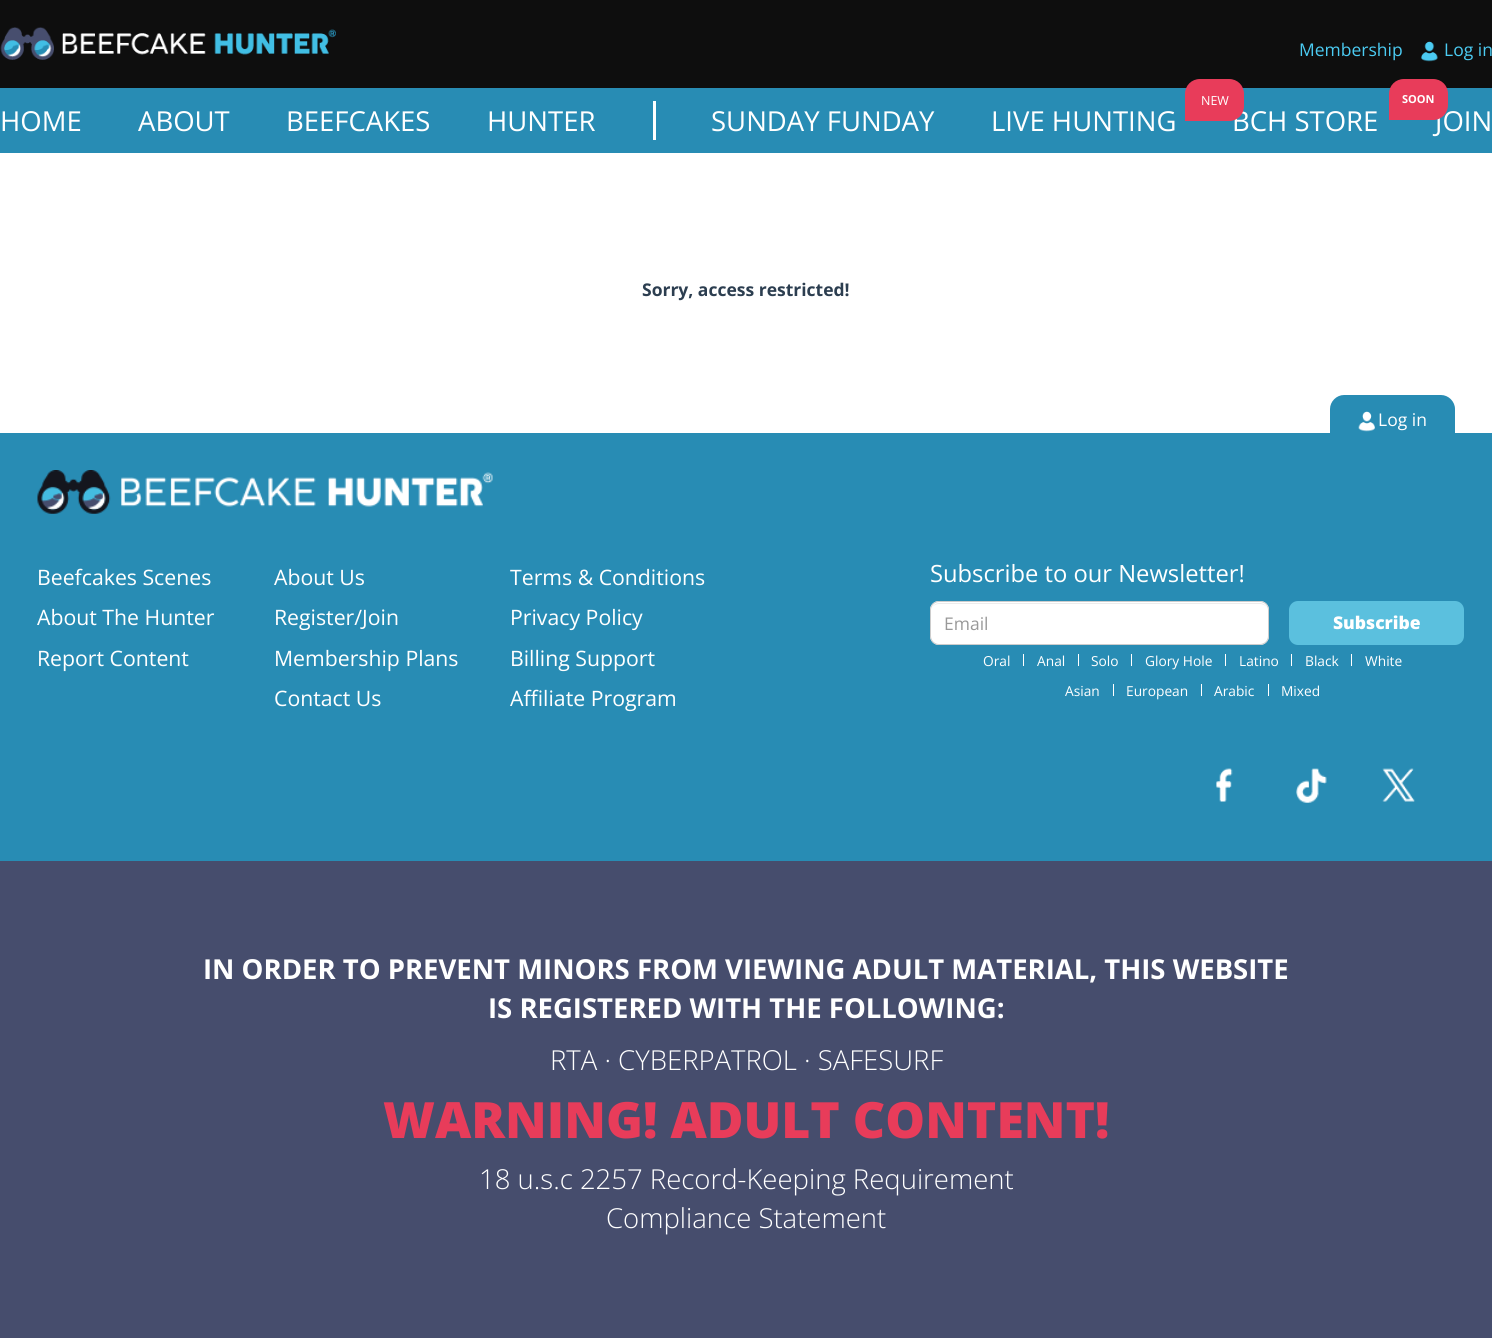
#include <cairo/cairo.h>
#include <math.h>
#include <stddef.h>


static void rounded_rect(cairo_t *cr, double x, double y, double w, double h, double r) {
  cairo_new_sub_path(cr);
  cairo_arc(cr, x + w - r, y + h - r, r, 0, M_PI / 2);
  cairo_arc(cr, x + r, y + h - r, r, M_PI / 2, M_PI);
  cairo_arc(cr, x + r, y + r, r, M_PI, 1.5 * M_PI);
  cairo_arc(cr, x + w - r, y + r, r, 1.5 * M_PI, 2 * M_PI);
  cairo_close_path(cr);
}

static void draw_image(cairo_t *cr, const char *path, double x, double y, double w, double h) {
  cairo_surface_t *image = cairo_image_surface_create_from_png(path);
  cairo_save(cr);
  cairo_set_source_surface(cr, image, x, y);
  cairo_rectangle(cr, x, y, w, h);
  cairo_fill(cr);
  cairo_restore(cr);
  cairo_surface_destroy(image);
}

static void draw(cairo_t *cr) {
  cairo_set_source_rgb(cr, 14 / 255.0, 14 / 255.0, 14 / 255.0);
  cairo_paint(cr);
  draw_image(cr, "images/1.png", 0, 27, 336, 33);
  draw_image(cr, "images/2.png", 1421, 41, 17, 21);
  cairo_set_source_rgb(cr, 40 / 255.0, 140 / 255.0, 180 / 255.0);
  cairo_rectangle(cr, 0, 88, 1492, 65);
  cairo_fill(cr);
  cairo_set_source_rgb(cr, 1, 1, 1);
  cairo_rectangle(cr, 653, 101, 3, 39);
  cairo_fill(cr);
  cairo_rectangle(cr, 0, 153, 1492, 280);
  cairo_fill(cr);
  cairo_set_source_rgb(cr, 40 / 255.0, 140 / 255.0, 180 / 255.0);
  cairo_rectangle(cr, 0, 433, 1492, 428);
  cairo_fill(cr);
  cairo_new_path(cr);
  cairo_move_to(cr, 1344, 395);
  cairo_line_to(cr, 1441, 395);
  cairo_curve_to(cr, 1448.5, 395, 1455, 401.5, 1455, 409);
  cairo_line_to(cr, 1455, 483);
  cairo_line_to(cr, 1330, 483);
  cairo_line_to(cr, 1330, 409);
  cairo_curve_to(cr, 1330, 401.5, 1336.5, 395, 1344, 395);
  cairo_close_path(cr);
  cairo_fill(cr);
  draw_image(cr, "images/3.png", 1358, 411, 17, 21);
  draw_image(cr, "images/4.png", 37, 470, 456, 44);
  cairo_set_source_rgb(cr, 1, 1, 1);
  rounded_rect(cr, 930, 601, 339, 44, 9);
  cairo_fill(cr);
  cairo_set_source_rgb(cr, 236 / 255.0, 236 / 255.0, 236 / 255.0);
  cairo_new_path(cr);
  cairo_move_to(cr, 939, 604);
  cairo_line_to(cr, 1260, 604);
  cairo_curve_to(cr, 1264, 604, 1268, 607, 1268, 611);
  cairo_curve_to(cr, 1268, 607, 1264, 603, 1260, 603);
  cairo_line_to(cr, 939, 603);
  cairo_curve_to(cr, 935, 603, 931, 607, 931, 611);
  cairo_curve_to(cr, 931, 607, 935, 604, 939, 604);
  cairo_close_path(cr);
  cairo_fill(cr);
  rounded_rect(cr, 930.5, 601.5, 338, 43, 8.5);
  cairo_set_source_rgb(cr, 204 / 255.0, 204 / 255.0, 204 / 255.0);
  cairo_set_line_width(cr, 1);
  cairo_stroke(cr);
  cairo_set_source_rgb(cr, 91 / 255.0, 192 / 255.0, 222 / 255.0);
  rounded_rect(cr, 1289, 601, 175, 44, 9);
  cairo_fill(cr);
  cairo_set_source_rgb(cr, 1, 1, 1);
  cairo_rectangle(cr, 1023, 654, 1, 12);
  cairo_fill(cr);
  cairo_rectangle(cr, 1078, 654, 1, 12);
  cairo_fill(cr);
  cairo_rectangle(cr, 1131, 654, 1, 12);
  cairo_fill(cr);
  cairo_rectangle(cr, 1225, 654, 1, 12);
  cairo_fill(cr);
  cairo_rectangle(cr, 1291, 654, 1, 12);
  cairo_fill(cr);
  cairo_rectangle(cr, 1351, 654, 1, 12);
  cairo_fill(cr);
  cairo_rectangle(cr, 1113, 684, 1, 12);
  cairo_fill(cr);
  cairo_rectangle(cr, 1201, 684, 1, 12);
  cairo_fill(cr);
  cairo_rectangle(cr, 1268, 684, 1, 12);
  cairo_fill(cr);
  draw_image(cr, "images/5.png", 1216, 768, 17, 34);
  draw_image(cr, "images/6.png", 1296, 768, 31, 35);
  draw_image(cr, "images/7.png", 1382, 768, 33, 34);
  cairo_set_source_rgb(cr, 70 / 255.0, 77 / 255.0, 109 / 255.0);
  cairo_rectangle(cr, 0, 861, 1492, 477);
  cairo_fill(cr);
  cairo_select_font_face(cr, "Open Sans", CAIRO_FONT_SLANT_NORMAL, CAIRO_FONT_WEIGHT_NORMAL);
  cairo_set_font_size(cr, 17.5);
  cairo_set_source_rgb(cr, 75 / 255.0, 203 / 255.0, 242 / 255.0);
  cairo_move_to(cr, 1299, 56);
  cairo_show_text(cr, "Membership");
  cairo_move_to(cr, 1444, 56);
  cairo_show_text(cr, "Log in");
  cairo_set_font_size(cr, 27.5);
  cairo_set_source_rgb(cr, 1, 1, 1);
  cairo_move_to(cr, 0, 131);
  cairo_show_text(cr, "HOME");
  cairo_move_to(cr, 138, 131);
  cairo_show_text(cr, "ABOUT");
  cairo_move_to(cr, 286, 131);
  cairo_show_text(cr, "BEEFCAKES");
  cairo_move_to(cr, 487, 131);
  cairo_show_text(cr, "HUNTER");
  cairo_move_to(cr, 711, 131);
  cairo_show_text(cr, "SUNDAY FUNDAY");
  cairo_move_to(cr, 991, 131);
  cairo_show_text(cr, "LIVE HUNTING");
  cairo_move_to(cr, 1232, 131);
  cairo_show_text(cr, "BCH STORE");
  cairo_set_source_rgb(cr, 232 / 255.0, 60 / 255.0, 90 / 255.0);
  cairo_new_path(cr);
  cairo_move_to(cr, 1200, 79);
  cairo_line_to(cr, 1229, 79);
  cairo_curve_to(cr, 1237.5, 79, 1244, 85.5, 1244, 94);
  cairo_line_to(cr, 1244, 106);
  cairo_curve_to(cr, 1244, 114.5, 1237.5, 121, 1229, 121);
  cairo_line_to(cr, 1185, 121);
  cairo_line_to(cr, 1185, 94);
  cairo_curve_to(cr, 1185, 85.5, 1191.5, 79, 1200, 79);
  cairo_close_path(cr);
  cairo_fill(cr);
  cairo_set_font_size(cr, 12.5);
  cairo_set_source_rgb(cr, 1, 1, 1);
  cairo_move_to(cr, 1201, 105);
  cairo_show_text(cr, "NEW");
  cairo_set_font_size(cr, 27.5);
  cairo_move_to(cr, 1435, 131);
  cairo_show_text(cr, "JOIN");
  cairo_set_source_rgb(cr, 232 / 255.0, 60 / 255.0, 90 / 255.0);
  cairo_new_path(cr);
  cairo_move_to(cr, 1404, 79);
  cairo_line_to(cr, 1433, 79);
  cairo_curve_to(cr, 1441.5, 79, 1448, 85.5, 1448, 94);
  cairo_line_to(cr, 1448, 105);
  cairo_curve_to(cr, 1448, 113.5, 1441.5, 120, 1433, 120);
  cairo_line_to(cr, 1389, 120);
  cairo_line_to(cr, 1389, 94);
  cairo_curve_to(cr, 1389, 85.5, 1395.5, 79, 1404, 79);
  cairo_close_path(cr);
  cairo_fill(cr);
  cairo_select_font_face(cr, "Open Sans", CAIRO_FONT_SLANT_NORMAL, CAIRO_FONT_WEIGHT_BOLD);
  cairo_set_font_size(cr, 11);
  cairo_set_source_rgb(cr, 1, 1, 1);
  cairo_move_to(cr, 1402, 103);
  cairo_show_text(cr, "SOON");
  cairo_set_font_size(cr, 17.5);
  cairo_set_source_rgb(cr, 44 / 255.0, 62 / 255.0, 80 / 255.0);
  cairo_move_to(cr, 642, 296);
  cairo_show_text(cr, "Sorry, access restricted!");
  cairo_select_font_face(cr, "Open Sans", CAIRO_FONT_SLANT_NORMAL, CAIRO_FONT_WEIGHT_NORMAL);
  cairo_set_source_rgb(cr, 1, 1, 1);
  cairo_move_to(cr, 1378, 426);
  cairo_show_text(cr, "Log in");
  cairo_set_font_size(cr, 21.25);
  cairo_move_to(cr, 37, 585);
  cairo_show_text(cr, "Beefcakes Scenes");
  cairo_move_to(cr, 37, 625);
  cairo_show_text(cr, "About The Hunter");
  cairo_move_to(cr, 37, 666);
  cairo_show_text(cr, "Report Content");
  cairo_move_to(cr, 274, 585);
  cairo_show_text(cr, "About Us");
  cairo_move_to(cr, 274, 625);
  cairo_show_text(cr, "Register/Join");
  cairo_move_to(cr, 274, 666);
  cairo_show_text(cr, "Membership Plans");
  cairo_move_to(cr, 274, 706);
  cairo_show_text(cr, "Contact Us");
  cairo_move_to(cr, 510, 585);
  cairo_show_text(cr, "Terms & Conditions");
  cairo_move_to(cr, 510, 625);
  cairo_show_text(cr, "Privacy Policy");
  cairo_move_to(cr, 510, 666);
  cairo_show_text(cr, "Billing Support");
  cairo_move_to(cr, 510, 706);
  cairo_show_text(cr, "Affiliate Program");
  cairo_set_font_size(cr, 23.75);
  cairo_move_to(cr, 930, 582);
  cairo_show_text(cr, "Subscribe to our Newsletter!");
  cairo_set_font_size(cr, 17.5);
  cairo_set_source_rgb(cr, 153 / 255.0, 153 / 255.0, 153 / 255.0);
  cairo_move_to(cr, 944, 630);
  cairo_show_text(cr, "Email");
  cairo_select_font_face(cr, "Open Sans ExtraBold", CAIRO_FONT_SLANT_NORMAL, CAIRO_FONT_WEIGHT_NORMAL);
  cairo_set_source_rgb(cr, 1, 1, 1);
  cairo_move_to(cr, 1333, 629);
  cairo_show_text(cr, "Subscribe");
  cairo_select_font_face(cr, "Open Sans", CAIRO_FONT_SLANT_NORMAL, CAIRO_FONT_WEIGHT_NORMAL);
  cairo_set_font_size(cr, 13.75);
  cairo_move_to(cr, 983, 666);
  cairo_show_text(cr, "Oral");
  cairo_move_to(cr, 1037, 666);
  cairo_show_text(cr, "Anal");
  cairo_move_to(cr, 1091, 666);
  cairo_show_text(cr, "Solo");
  cairo_move_to(cr, 1145, 666);
  cairo_show_text(cr, "Glory Hole");
  cairo_move_to(cr, 1239, 666);
  cairo_show_text(cr, "Latino");
  cairo_move_to(cr, 1305, 666);
  cairo_show_text(cr, "Black");
  cairo_move_to(cr, 1365, 666);
  cairo_show_text(cr, "White");
  cairo_move_to(cr, 1065, 696);
  cairo_show_text(cr, "Asian");
  cairo_move_to(cr, 1126, 696);
  cairo_show_text(cr, "European");
  cairo_move_to(cr, 1214, 696);
  cairo_show_text(cr, "Arabic");
  cairo_move_to(cr, 1281, 696);
  cairo_show_text(cr, "Mixed");
  cairo_select_font_face(cr, "Open Sans", CAIRO_FONT_SLANT_NORMAL, CAIRO_FONT_WEIGHT_BOLD);
  cairo_set_font_size(cr, 27.5);
  cairo_move_to(cr, 203, 979);
  cairo_show_text(cr, "IN ORDER TO PREVENT MINORS FROM VIEWING ADULT MATERIAL, THIS WEBSITE");
  cairo_move_to(cr, 488, 1018);
  cairo_show_text(cr, "IS REGISTERED WITH THE FOLLOWING:");
  cairo_select_font_face(cr, "Open Sans Light", CAIRO_FONT_SLANT_NORMAL, CAIRO_FONT_WEIGHT_NORMAL);
  cairo_move_to(cr, 550, 1070);
  cairo_show_text(cr, "RTA · CYBERPATROL · SAFESURF");
  cairo_select_font_face(cr, "Open Sans ExtraBold", CAIRO_FONT_SLANT_NORMAL, CAIRO_FONT_WEIGHT_NORMAL);
  cairo_set_font_size(cr, 50);
  cairo_set_source_rgb(cr, 232 / 255.0, 60 / 255.0, 90 / 255.0);
  cairo_move_to(cr, 383, 1138);
  cairo_show_text(cr, "WARNING! ADULT CONTENT!");
  cairo_select_font_face(cr, "Open Sans Light", CAIRO_FONT_SLANT_NORMAL, CAIRO_FONT_WEIGHT_NORMAL);
  cairo_set_font_size(cr, 27.5);
  cairo_set_source_rgb(cr, 1, 1, 1);
  cairo_move_to(cr, 479, 1189);
  cairo_show_text(cr, "18 u.s.c 2257 Record-Keeping Requirement");
  cairo_move_to(cr, 606, 1228);
  cairo_show_text(cr, "Compliance Statement");
}

int main(void) {
  cairo_surface_t *surface = cairo_image_surface_create(CAIRO_FORMAT_RGB24, 1492, 1338);
  cairo_t *cr = cairo_create(surface);
  cairo_font_options_t *options = cairo_font_options_create();
  cairo_font_options_set_hint_metrics(options, CAIRO_HINT_METRICS_OFF);
  cairo_font_options_set_hint_style(options, CAIRO_HINT_STYLE_NONE);
  cairo_set_font_options(cr, options);
  cairo_set_miter_limit(cr, 4);
  draw(cr);
  cairo_surface_write_to_png(surface, "out.png");
  cairo_font_options_destroy(options);
  cairo_destroy(cr);
  cairo_surface_destroy(surface);
  return 0;
}
